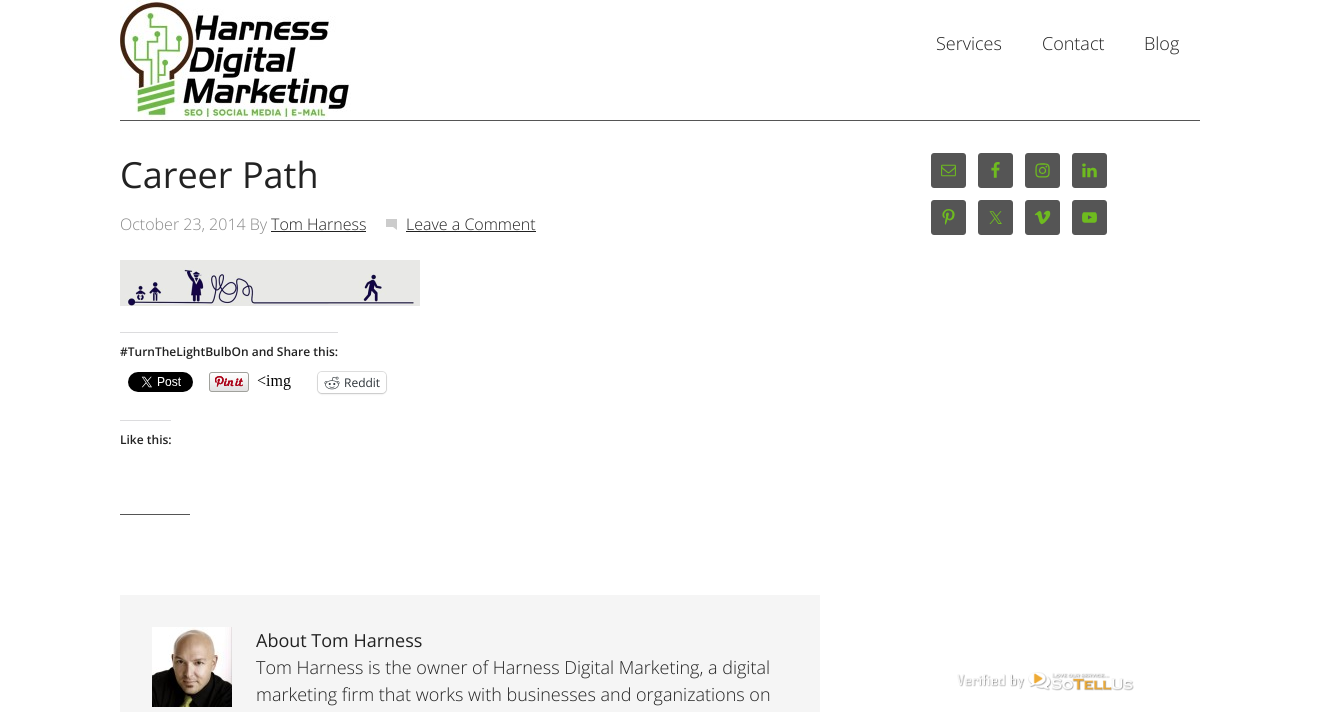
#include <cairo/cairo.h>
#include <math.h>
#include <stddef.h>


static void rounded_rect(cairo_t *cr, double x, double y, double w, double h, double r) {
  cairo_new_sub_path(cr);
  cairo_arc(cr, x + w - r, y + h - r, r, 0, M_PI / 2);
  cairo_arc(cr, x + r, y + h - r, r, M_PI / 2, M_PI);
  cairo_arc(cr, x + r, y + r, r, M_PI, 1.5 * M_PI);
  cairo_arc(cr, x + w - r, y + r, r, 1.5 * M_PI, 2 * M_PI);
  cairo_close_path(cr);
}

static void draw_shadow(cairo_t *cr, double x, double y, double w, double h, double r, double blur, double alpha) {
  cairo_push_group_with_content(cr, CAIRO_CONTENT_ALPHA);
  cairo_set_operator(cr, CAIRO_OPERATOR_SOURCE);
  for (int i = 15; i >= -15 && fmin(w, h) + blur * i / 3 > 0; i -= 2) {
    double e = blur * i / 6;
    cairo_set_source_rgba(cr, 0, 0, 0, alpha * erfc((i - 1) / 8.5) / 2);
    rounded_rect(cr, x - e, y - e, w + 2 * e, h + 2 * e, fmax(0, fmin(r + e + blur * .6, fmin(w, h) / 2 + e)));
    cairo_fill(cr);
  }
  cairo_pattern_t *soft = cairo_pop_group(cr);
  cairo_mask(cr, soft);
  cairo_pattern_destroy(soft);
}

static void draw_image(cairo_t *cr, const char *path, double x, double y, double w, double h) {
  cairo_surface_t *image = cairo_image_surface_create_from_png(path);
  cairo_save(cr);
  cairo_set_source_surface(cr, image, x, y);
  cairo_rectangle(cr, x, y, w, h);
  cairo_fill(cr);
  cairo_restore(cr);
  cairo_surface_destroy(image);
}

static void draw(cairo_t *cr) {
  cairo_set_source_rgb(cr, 1, 1, 1);
  cairo_paint(cr);
  draw_image(cr, "images/1.png", 120, 0, 231, 120);
  cairo_set_source_rgb(cr, 85 / 255.0, 85 / 255.0, 85 / 255.0);
  cairo_rectangle(cr, 120, 120, 1080, 1);
  cairo_fill(cr);
  cairo_set_source_rgb(cr, 34 / 255.0, 34 / 255.0, 34 / 255.0);
  cairo_rectangle(cr, 271, 231, 95, 1);
  cairo_fill(cr);
  draw_image(cr, "images/2.png", 386, 219, 11, 11);
  cairo_rectangle(cr, 406, 231, 130, 1);
  cairo_fill(cr);
  draw_image(cr, "images/3.png", 120, 260, 300, 46);
  cairo_set_source_rgb(cr, 220 / 255.0, 220 / 255.0, 222 / 255.0);
  cairo_rectangle(cr, 120, 332, 218, 1);
  cairo_fill(cr);
  draw_image(cr, "images/4.png", 128, 372, 65, 20);
  draw_image(cr, "images/5.png", 209, 372, 40, 20);
  draw_image(cr, "images/6.png", 257, 375, 34, 15);
  rounded_rect(cr, 317.5, 371.5, 69, 22, 4.5);
  cairo_set_source_rgb(cr, 224 / 255.0, 224 / 255.0, 224 / 255.0);
  cairo_set_line_width(cr, 1);
  cairo_stroke(cr);
  cairo_set_source_rgb(cr, 0, 0, 0);
  draw_shadow(cr, 318, 373, 68, 21, 4, 1, 0.12);
  cairo_set_source_rgb(cr, 1, 1, 1);
  rounded_rect(cr, 318, 372, 68, 21, 4);
  cairo_fill(cr);
  draw_image(cr, "images/7.png", 324, 376, 16, 14);
  cairo_set_source_rgb(cr, 220 / 255.0, 220 / 255.0, 222 / 255.0);
  cairo_rectangle(cr, 120, 420, 51, 1);
  cairo_fill(cr);
  cairo_set_source_rgb(cr, 85 / 255.0, 85 / 255.0, 85 / 255.0);
  cairo_rectangle(cr, 120, 514, 70, 1);
  cairo_fill(cr);
  cairo_set_source_rgb(cr, 245 / 255.0, 245 / 255.0, 245 / 255.0);
  cairo_rectangle(cr, 120, 595, 700, 117);
  cairo_fill(cr);
  draw_image(cr, "images/8.png", 152, 627, 80, 80);
  cairo_set_source_rgb(cr, 85 / 255.0, 85 / 255.0, 85 / 255.0);
  rounded_rect(cr, 931, 153, 35, 35, 3);
  cairo_fill(cr);
  draw_image(cr, "images/9.png", 941, 164, 15, 13);
  rounded_rect(cr, 978, 153, 35, 35, 3);
  cairo_fill(cr);
  draw_image(cr, "images/10.png", 991, 162, 9, 16);
  rounded_rect(cr, 1025, 153, 35, 35, 3);
  cairo_fill(cr);
  draw_image(cr, "images/11.png", 1035, 163, 15, 15);
  rounded_rect(cr, 1072, 153, 35, 35, 3);
  cairo_fill(cr);
  draw_image(cr, "images/12.png", 1082, 163, 15, 15);
  rounded_rect(cr, 931, 200, 35, 35, 3);
  cairo_fill(cr);
  draw_image(cr, "images/13.png", 942, 209, 13, 16);
  rounded_rect(cr, 978, 200, 35, 35, 3);
  cairo_fill(cr);
  draw_image(cr, "images/14.png", 989, 211, 13, 13);
  rounded_rect(cr, 1025, 200, 35, 35, 3);
  cairo_fill(cr);
  draw_image(cr, "images/15.png", 1034, 210, 17, 15);
  rounded_rect(cr, 1072, 200, 35, 35, 3);
  cairo_fill(cr);
  draw_image(cr, "images/16.png", 1082, 212, 15, 11);
  draw_image(cr, "images/17.png", 957, 672, 177, 19);
  cairo_select_font_face(cr, "Open Sans Light", CAIRO_FONT_SLANT_NORMAL, CAIRO_FONT_WEIGHT_NORMAL);
  cairo_set_font_size(cr, 18);
  cairo_set_source_rgb(cr, 34 / 255.0, 34 / 255.0, 34 / 255.0);
  cairo_move_to(cr, 936, 50);
  cairo_show_text(cr, "Services");
  cairo_move_to(cr, 1042, 50);
  cairo_show_text(cr, "Contact");
  cairo_move_to(cr, 1144, 50);
  cairo_show_text(cr, "Blog");
  cairo_select_font_face(cr, "Open Sans", CAIRO_FONT_SLANT_NORMAL, CAIRO_FONT_WEIGHT_NORMAL);
  cairo_set_font_size(cr, 36);
  cairo_move_to(cr, 120, 188);
  cairo_show_text(cr, "Career Path");
  cairo_select_font_face(cr, "Open Sans Light", CAIRO_FONT_SLANT_NORMAL, CAIRO_FONT_WEIGHT_NORMAL);
  cairo_set_font_size(cr, 16);
  cairo_set_source_rgb(cr, 136 / 255.0, 136 / 255.0, 136 / 255.0);
  cairo_move_to(cr, 120, 230);
  cairo_show_text(cr, "October 23, 2014 By");
  cairo_set_source_rgb(cr, 34 / 255.0, 34 / 255.0, 34 / 255.0);
  cairo_move_to(cr, 271, 230);
  cairo_show_text(cr, "Tom Harness");
  cairo_move_to(cr, 406, 230);
  cairo_show_text(cr, "Leave a Comment");
  cairo_select_font_face(cr, "Open Sans SemiBold", CAIRO_FONT_SLANT_NORMAL, CAIRO_FONT_WEIGHT_NORMAL);
  cairo_set_font_size(cr, 12);
  cairo_move_to(cr, 120, 356);
  cairo_show_text(cr, "#TurnTheLightBulbOn and Share this:");
  cairo_select_font_face(cr, "Open Sans", CAIRO_FONT_SLANT_NORMAL, CAIRO_FONT_WEIGHT_NORMAL);
  cairo_set_source_rgb(cr, 44 / 255.0, 51 / 255.0, 56 / 255.0);
  cairo_move_to(cr, 344, 387);
  cairo_show_text(cr, "Reddit");
  cairo_select_font_face(cr, "Open Sans SemiBold", CAIRO_FONT_SLANT_NORMAL, CAIRO_FONT_WEIGHT_NORMAL);
  cairo_set_source_rgb(cr, 34 / 255.0, 34 / 255.0, 34 / 255.0);
  cairo_move_to(cr, 120, 444);
  cairo_show_text(cr, "Like this:");
  cairo_select_font_face(cr, "Open Sans", CAIRO_FONT_SLANT_NORMAL, CAIRO_FONT_WEIGHT_NORMAL);
  cairo_set_font_size(cr, 18);
  cairo_move_to(cr, 256, 647);
  cairo_show_text(cr, "About Tom Harness");
  cairo_select_font_face(cr, "Open Sans Light", CAIRO_FONT_SLANT_NORMAL, CAIRO_FONT_WEIGHT_NORMAL);
  cairo_move_to(cr, 256, 674);
  cairo_show_text(cr, "Tom Harness is the owner of Harness Digital Marketing, a digital");
  cairo_move_to(cr, 256, 701);
  cairo_show_text(cr, "marketing firm that works with businesses and organizations on");
}

int main(void) {
  cairo_surface_t *surface = cairo_image_surface_create(CAIRO_FORMAT_RGB24, 1319, 712);
  cairo_t *cr = cairo_create(surface);
  cairo_font_options_t *options = cairo_font_options_create();
  cairo_font_options_set_hint_metrics(options, CAIRO_HINT_METRICS_OFF);
  cairo_font_options_set_hint_style(options, CAIRO_HINT_STYLE_NONE);
  cairo_set_font_options(cr, options);
  cairo_set_miter_limit(cr, 4);
  draw(cr);
  cairo_surface_write_to_png(surface, "out.png");
  cairo_font_options_destroy(options);
  cairo_destroy(cr);
  cairo_surface_destroy(surface);
  return 0;
}
